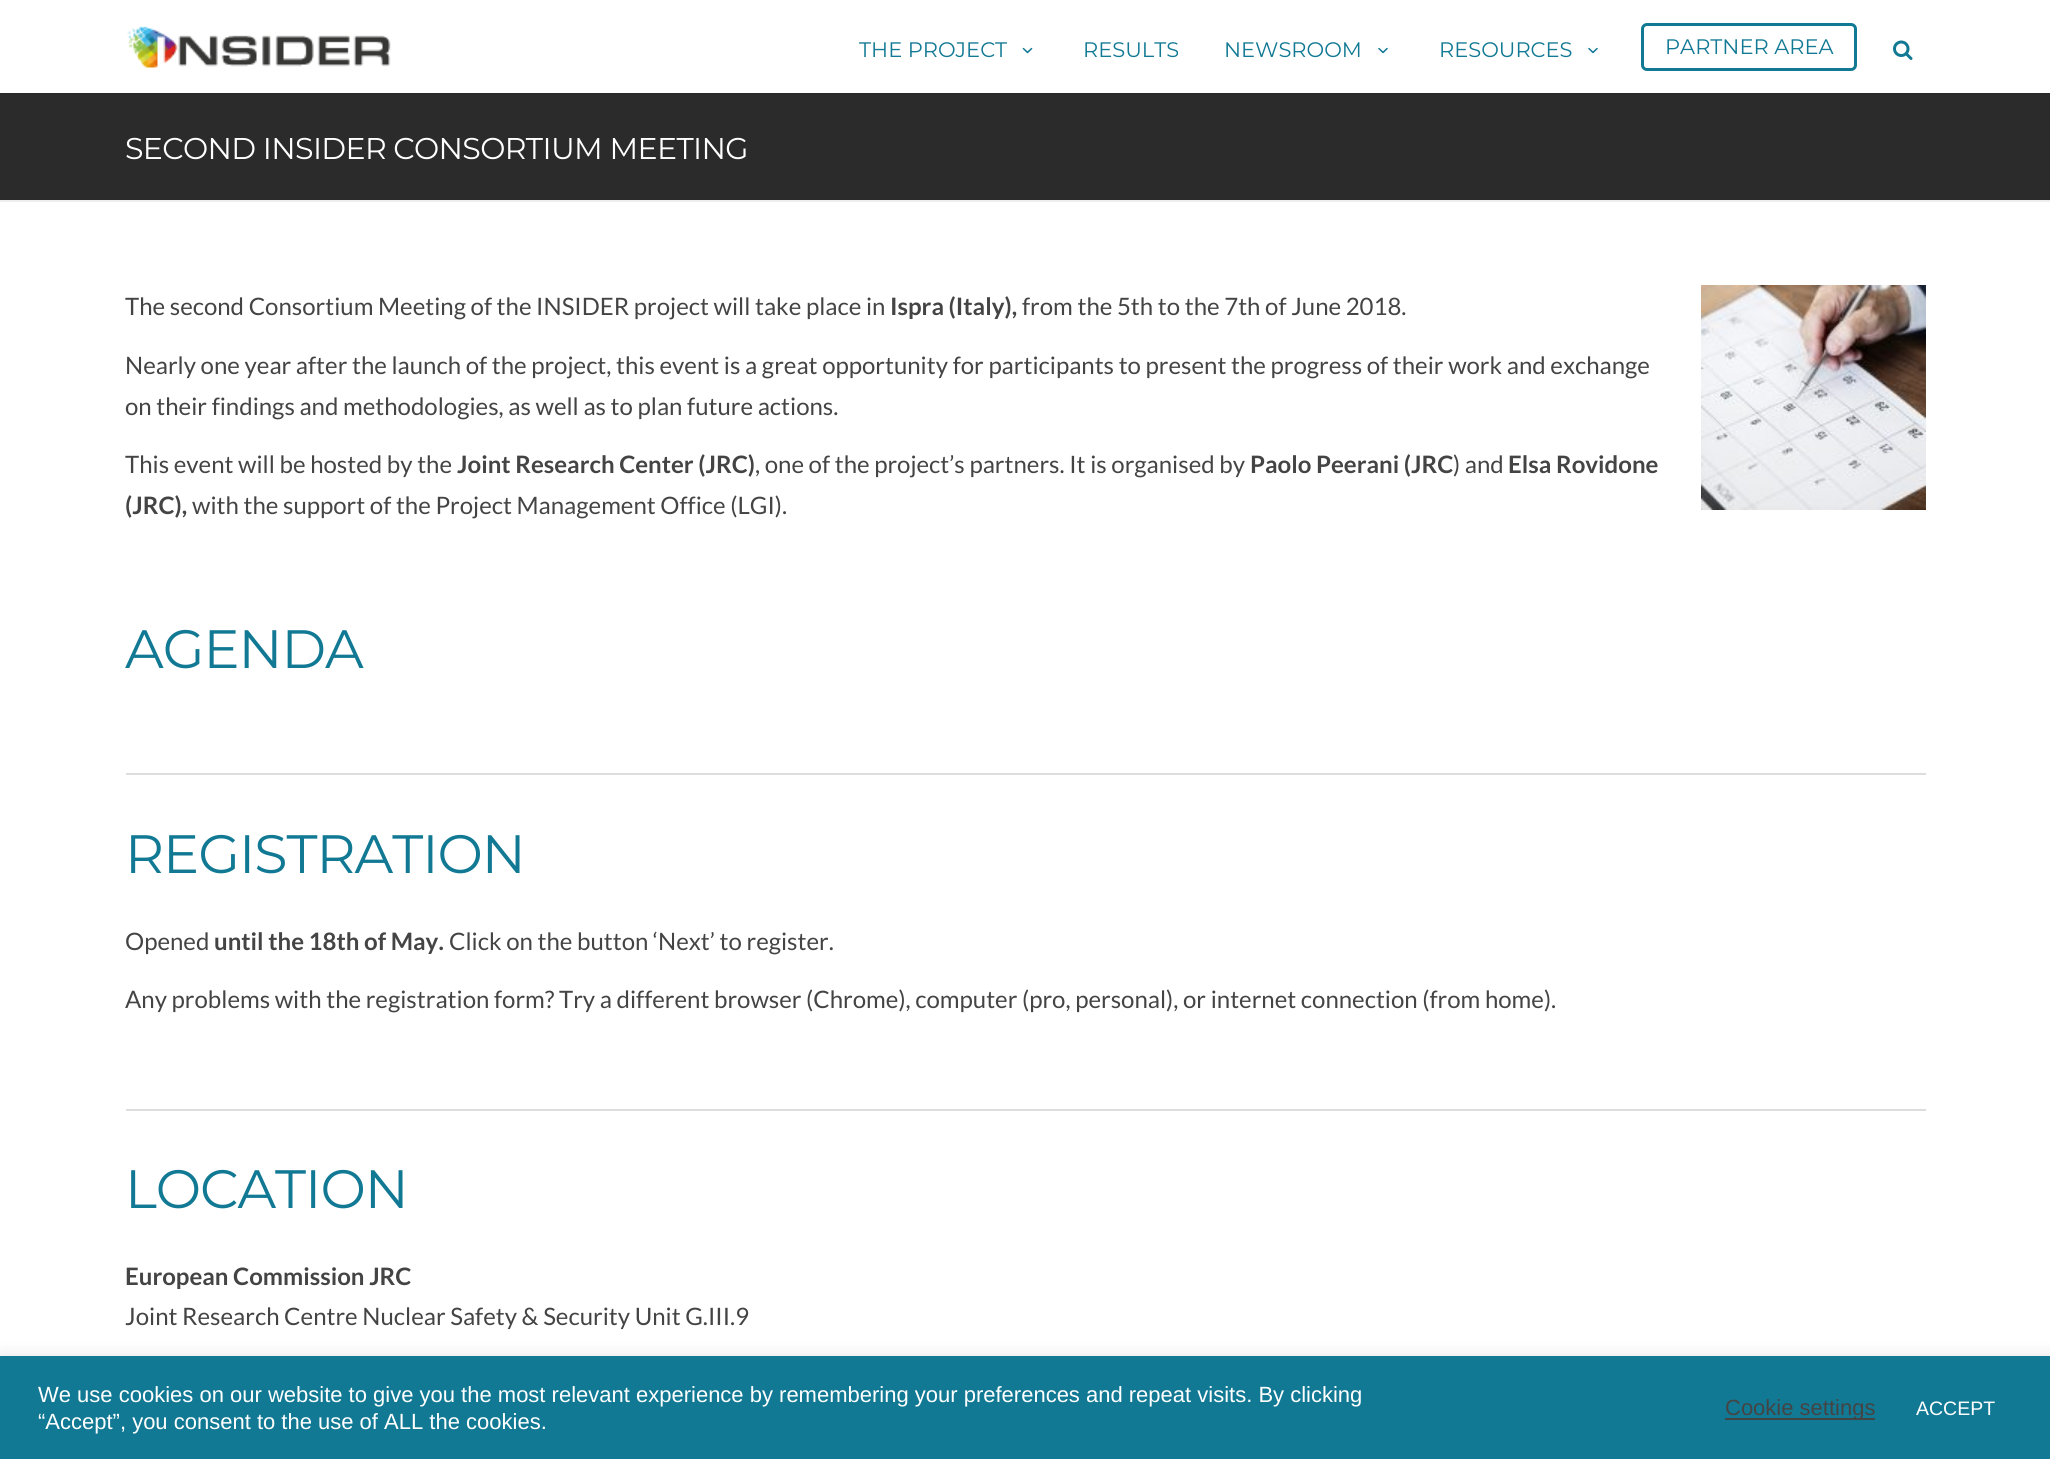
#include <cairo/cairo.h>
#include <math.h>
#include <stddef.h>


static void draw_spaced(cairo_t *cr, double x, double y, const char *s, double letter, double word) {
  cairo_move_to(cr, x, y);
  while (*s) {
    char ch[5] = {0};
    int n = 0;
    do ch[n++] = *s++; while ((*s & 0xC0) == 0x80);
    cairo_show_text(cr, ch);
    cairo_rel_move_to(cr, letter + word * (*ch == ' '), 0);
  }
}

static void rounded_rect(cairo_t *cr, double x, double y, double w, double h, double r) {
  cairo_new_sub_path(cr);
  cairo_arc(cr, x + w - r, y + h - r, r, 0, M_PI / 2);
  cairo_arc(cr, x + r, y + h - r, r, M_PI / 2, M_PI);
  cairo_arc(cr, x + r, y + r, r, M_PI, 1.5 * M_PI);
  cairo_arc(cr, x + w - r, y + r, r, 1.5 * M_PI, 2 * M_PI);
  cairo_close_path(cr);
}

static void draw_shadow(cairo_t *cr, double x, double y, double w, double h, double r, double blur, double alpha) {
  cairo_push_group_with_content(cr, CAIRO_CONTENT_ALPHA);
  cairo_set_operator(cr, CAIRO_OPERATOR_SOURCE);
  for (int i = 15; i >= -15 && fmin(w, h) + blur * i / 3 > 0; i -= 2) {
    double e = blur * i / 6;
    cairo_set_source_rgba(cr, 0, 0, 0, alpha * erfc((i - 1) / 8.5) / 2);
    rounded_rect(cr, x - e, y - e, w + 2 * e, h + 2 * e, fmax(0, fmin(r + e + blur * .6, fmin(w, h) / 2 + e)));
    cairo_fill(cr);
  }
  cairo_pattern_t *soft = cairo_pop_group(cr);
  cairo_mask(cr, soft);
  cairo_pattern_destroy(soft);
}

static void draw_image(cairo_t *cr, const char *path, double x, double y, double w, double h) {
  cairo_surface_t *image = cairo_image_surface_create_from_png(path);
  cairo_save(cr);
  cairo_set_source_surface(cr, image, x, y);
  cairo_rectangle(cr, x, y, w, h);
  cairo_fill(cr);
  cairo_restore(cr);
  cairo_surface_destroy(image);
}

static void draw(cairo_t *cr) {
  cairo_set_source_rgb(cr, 1, 1, 1);
  cairo_paint(cr);
  cairo_set_source_rgb(cr, 43 / 255.0, 43 / 255.0, 43 / 255.0);
  cairo_rectangle(cr, 0, 93, 2050, 107);
  cairo_fill(cr);
  cairo_rectangle(cr, 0, 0, 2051, 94);
  cairo_set_source_rgba(cr, 0, 0, 0, 0.05);
  cairo_stroke(cr);
  cairo_set_source_rgb(cr, 1, 1, 1);
  cairo_rectangle(cr, 0, 0, 2050, 93);
  cairo_fill(cr);
  draw_image(cr, "images/1.png", 127, 26, 264, 42);
  draw_image(cr, "images/2.png", 1022, 47, 11, 7);
  draw_image(cr, "images/3.png", 1378, 47, 10, 7);
  draw_image(cr, "images/3.png", 1588, 47, 10, 7);
  rounded_rect(cr, 1642.5, 24.5, 213, 45, 4.5);
  cairo_set_source_rgb(cr, 17 / 255.0, 121 / 255.0, 148 / 255.0);
  cairo_set_line_width(cr, 3);
  cairo_stroke(cr);
  draw_image(cr, "images/4.png", 1893, 40, 20, 20);
  cairo_set_source_rgb(cr, 238 / 255.0, 238 / 255.0, 238 / 255.0);
  cairo_rectangle(cr, 0, 200, 2050, 2);
  cairo_fill(cr);
  draw_image(cr, "images/5.png", 1701, 285, 225, 225);
  cairo_set_source_rgb(cr, 221 / 255.0, 221 / 255.0, 221 / 255.0);
  cairo_rectangle(cr, 126, 773, 1800, 2);
  cairo_fill(cr);
  cairo_rectangle(cr, 126, 1109, 1800, 2);
  cairo_fill(cr);
  cairo_set_source_rgb(cr, 172 / 255.0, 171 / 255.0, 171 / 255.0);
  draw_shadow(cr, 0, 1355, 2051, 103, 0, 7.5, 0.3);
  cairo_set_source_rgb(cr, 17 / 255.0, 121 / 255.0, 148 / 255.0);
  cairo_rectangle(cr, 0, 1356, 2050, 103);
  cairo_fill(cr);
  cairo_set_source_rgb(cr, 68 / 255.0, 68 / 255.0, 68 / 255.0);
  cairo_rectangle(cr, 1725, 1418, 150, 2);
  cairo_fill(cr);
  cairo_select_font_face(cr, "Montserrat", CAIRO_FONT_SLANT_NORMAL, CAIRO_FONT_WEIGHT_NORMAL);
  cairo_set_font_size(cr, 21);
  cairo_set_source_rgb(cr, 17 / 255.0, 121 / 255.0, 148 / 255.0);
  cairo_move_to(cr, 859, 57);
  cairo_show_text(cr, "THE PROJECT");
  cairo_move_to(cr, 1083, 57);
  cairo_show_text(cr, "RESULTS");
  cairo_move_to(cr, 1224, 57);
  cairo_show_text(cr, "NEWSROOM");
  cairo_move_to(cr, 1439, 57);
  cairo_show_text(cr, "RESOURCES");
  cairo_move_to(cr, 1665, 54);
  cairo_show_text(cr, "PARTNER AREA");
  cairo_set_font_size(cr, 30);
  cairo_set_source_rgb(cr, 1, 1, 1);
  draw_spaced(cr, 125, 159, "SECOND INSIDER CONSORTIUM MEETING", -0.6, 0);
  cairo_select_font_face(cr, "Lato", CAIRO_FONT_SLANT_NORMAL, CAIRO_FONT_WEIGHT_NORMAL);
  cairo_set_font_size(cr, 24);
  cairo_set_source_rgb(cr, 68 / 255.0, 68 / 255.0, 68 / 255.0);
  cairo_move_to(cr, 125, 315);
  cairo_show_text(cr, "The second Consortium Meeting of the INSIDER project will take place in");
  cairo_select_font_face(cr, "Lato", CAIRO_FONT_SLANT_NORMAL, CAIRO_FONT_WEIGHT_BOLD);
  cairo_move_to(cr, 890, 315);
  cairo_show_text(cr, "Ispra (Italy),");
  cairo_select_font_face(cr, "Lato", CAIRO_FONT_SLANT_NORMAL, CAIRO_FONT_WEIGHT_NORMAL);
  cairo_move_to(cr, 1022, 315);
  cairo_show_text(cr, "from the 5th to the 7th of June 2018.");
  cairo_move_to(cr, 125, 374);
  cairo_show_text(cr, "Nearly one year after the launch of the project, this event is a great opportunity for participants to present the progress of their work and exchange");
  cairo_move_to(cr, 125, 415);
  cairo_show_text(cr, "on their findings and methodologies, as well as to plan future actions.");
  cairo_move_to(cr, 125, 473);
  cairo_show_text(cr, "This event will be hosted by the");
  cairo_select_font_face(cr, "Lato", CAIRO_FONT_SLANT_NORMAL, CAIRO_FONT_WEIGHT_BOLD);
  cairo_move_to(cr, 457, 473);
  cairo_show_text(cr, "Joint Research Center (JRC)");
  cairo_select_font_face(cr, "Lato", CAIRO_FONT_SLANT_NORMAL, CAIRO_FONT_WEIGHT_NORMAL);
  cairo_move_to(cr, 755, 473);
  cairo_show_text(cr, ", one of the project’s partners. It is organised by");
  cairo_select_font_face(cr, "Lato", CAIRO_FONT_SLANT_NORMAL, CAIRO_FONT_WEIGHT_BOLD);
  cairo_move_to(cr, 1250, 473);
  cairo_show_text(cr, "Paolo Peerani (JRC");
  cairo_select_font_face(cr, "Lato", CAIRO_FONT_SLANT_NORMAL, CAIRO_FONT_WEIGHT_NORMAL);
  cairo_move_to(cr, 1453, 473);
  cairo_show_text(cr, ") and");
  cairo_select_font_face(cr, "Lato", CAIRO_FONT_SLANT_NORMAL, CAIRO_FONT_WEIGHT_BOLD);
  cairo_move_to(cr, 1508, 473);
  cairo_show_text(cr, "Elsa Rovidone");
  cairo_move_to(cr, 125, 514);
  cairo_show_text(cr, "(JRC),");
  cairo_select_font_face(cr, "Lato", CAIRO_FONT_SLANT_NORMAL, CAIRO_FONT_WEIGHT_NORMAL);
  cairo_move_to(cr, 192, 514);
  cairo_show_text(cr, "with the support of the Project Management Office (LGI).");
  cairo_select_font_face(cr, "Montserrat", CAIRO_FONT_SLANT_NORMAL, CAIRO_FONT_WEIGHT_NORMAL);
  cairo_set_font_size(cr, 54);
  cairo_set_source_rgb(cr, 17 / 255.0, 121 / 255.0, 148 / 255.0);
  draw_spaced(cr, 125, 668, "AGENDA", -1, 0);
  draw_spaced(cr, 125, 873, "REGISTRATION", -1, 0);
  cairo_select_font_face(cr, "Lato", CAIRO_FONT_SLANT_NORMAL, CAIRO_FONT_WEIGHT_NORMAL);
  cairo_set_font_size(cr, 24);
  cairo_set_source_rgb(cr, 68 / 255.0, 68 / 255.0, 68 / 255.0);
  cairo_move_to(cr, 125, 950);
  cairo_show_text(cr, "Opened");
  cairo_select_font_face(cr, "Lato", CAIRO_FONT_SLANT_NORMAL, CAIRO_FONT_WEIGHT_BOLD);
  cairo_move_to(cr, 214, 950);
  cairo_show_text(cr, "until the 18th of May.");
  cairo_select_font_face(cr, "Lato", CAIRO_FONT_SLANT_NORMAL, CAIRO_FONT_WEIGHT_NORMAL);
  cairo_move_to(cr, 449, 950);
  cairo_show_text(cr, "Click on the button ‘Next’ to register.");
  cairo_move_to(cr, 125, 1008);
  cairo_show_text(cr, "Any problems with the registration form? Try a different browser (Chrome), computer (pro, personal), or internet connection (from home).");
  cairo_select_font_face(cr, "Montserrat", CAIRO_FONT_SLANT_NORMAL, CAIRO_FONT_WEIGHT_NORMAL);
  cairo_set_font_size(cr, 54);
  cairo_set_source_rgb(cr, 17 / 255.0, 121 / 255.0, 148 / 255.0);
  draw_spaced(cr, 125, 1208, "LOCATION", -1, 0);
  cairo_select_font_face(cr, "Lato", CAIRO_FONT_SLANT_NORMAL, CAIRO_FONT_WEIGHT_BOLD);
  cairo_set_font_size(cr, 24);
  cairo_set_source_rgb(cr, 68 / 255.0, 68 / 255.0, 68 / 255.0);
  cairo_move_to(cr, 125, 1285);
  cairo_show_text(cr, "European Commission JRC");
  cairo_select_font_face(cr, "Lato", CAIRO_FONT_SLANT_NORMAL, CAIRO_FONT_WEIGHT_NORMAL);
  cairo_move_to(cr, 125, 1325);
  cairo_show_text(cr, "Joint Research Centre Nuclear Safety & Security Unit G.III.9");
  cairo_select_font_face(cr, "Liberation Sans", CAIRO_FONT_SLANT_NORMAL, CAIRO_FONT_WEIGHT_NORMAL);
  cairo_set_font_size(cr, 22);
  cairo_set_source_rgb(cr, 1, 1, 1);
  cairo_move_to(cr, 38, 1402);
  cairo_show_text(cr, "We use cookies on our website to give you the most relevant experience by remembering your preferences and repeat visits. By clicking");
  cairo_move_to(cr, 38, 1429);
  cairo_show_text(cr, "“Accept”, you consent to the use of ALL the cookies.");
  cairo_set_source_rgb(cr, 68 / 255.0, 68 / 255.0, 68 / 255.0);
  cairo_move_to(cr, 1725, 1415);
  cairo_show_text(cr, "Cookie settings");
  cairo_set_font_size(cr, 19.5);
  cairo_set_source_rgb(cr, 1, 1, 1);
  cairo_move_to(cr, 1916, 1415);
  cairo_show_text(cr, "ACCEPT");
}

int main(void) {
  cairo_surface_t *surface = cairo_image_surface_create(CAIRO_FORMAT_RGB24, 2050, 1459);
  cairo_t *cr = cairo_create(surface);
  cairo_font_options_t *options = cairo_font_options_create();
  cairo_font_options_set_hint_metrics(options, CAIRO_HINT_METRICS_OFF);
  cairo_font_options_set_hint_style(options, CAIRO_HINT_STYLE_NONE);
  cairo_set_font_options(cr, options);
  cairo_set_miter_limit(cr, 4);
  draw(cr);
  cairo_surface_write_to_png(surface, "out.png");
  cairo_font_options_destroy(options);
  cairo_destroy(cr);
  cairo_surface_destroy(surface);
  return 0;
}
